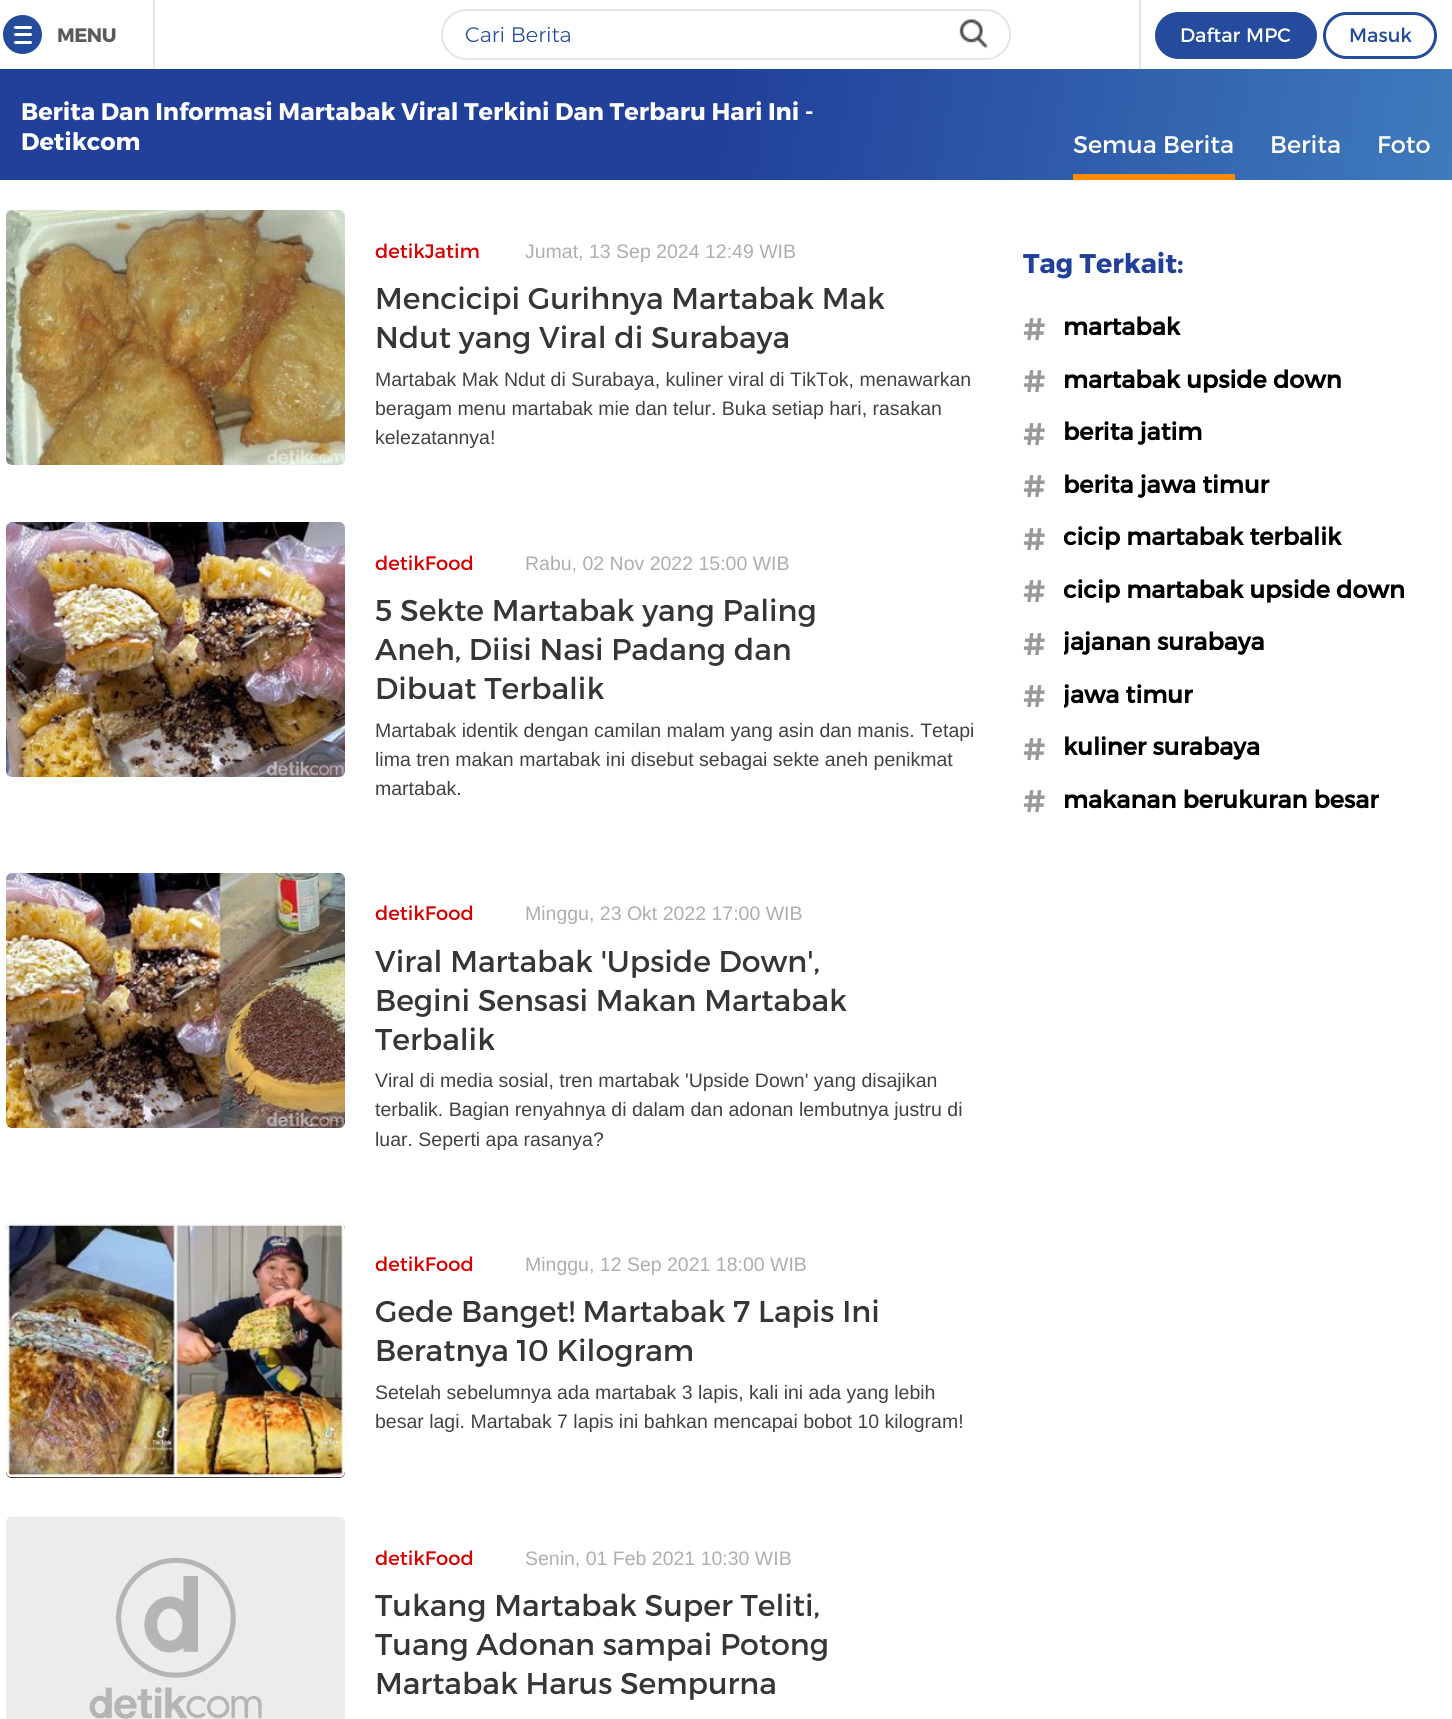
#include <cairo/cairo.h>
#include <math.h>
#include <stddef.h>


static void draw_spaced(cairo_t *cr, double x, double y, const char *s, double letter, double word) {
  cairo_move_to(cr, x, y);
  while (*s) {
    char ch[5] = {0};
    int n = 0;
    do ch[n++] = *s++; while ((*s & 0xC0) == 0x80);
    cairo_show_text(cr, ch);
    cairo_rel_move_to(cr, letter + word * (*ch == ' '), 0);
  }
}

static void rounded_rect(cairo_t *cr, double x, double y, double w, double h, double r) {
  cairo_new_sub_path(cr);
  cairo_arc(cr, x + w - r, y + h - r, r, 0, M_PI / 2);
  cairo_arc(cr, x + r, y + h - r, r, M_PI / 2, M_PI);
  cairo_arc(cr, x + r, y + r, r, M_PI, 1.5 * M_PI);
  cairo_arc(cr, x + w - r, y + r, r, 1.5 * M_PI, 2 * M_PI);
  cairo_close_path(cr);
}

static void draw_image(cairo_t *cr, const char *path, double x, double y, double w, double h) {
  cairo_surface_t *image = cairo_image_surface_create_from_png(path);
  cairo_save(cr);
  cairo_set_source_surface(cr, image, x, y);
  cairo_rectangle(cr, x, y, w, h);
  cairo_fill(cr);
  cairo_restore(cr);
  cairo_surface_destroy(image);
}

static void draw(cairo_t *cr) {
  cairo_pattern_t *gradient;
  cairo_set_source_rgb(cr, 1, 1, 1);
  cairo_paint(cr);
  cairo_set_source_rgb(cr, 229 / 255.0, 229 / 255.0, 229 / 255.0);
  cairo_rectangle(cr, 153, 0, 2, 69);
  cairo_fill(cr);
  cairo_set_source_rgb(cr, 36 / 255.0, 75 / 255.0, 156 / 255.0);
  cairo_arc(cr, 22.5, 34.5, 19.5, 0, 2 * M_PI);
  cairo_fill(cr);
  cairo_set_source_rgb(cr, 1, 1, 1);
  rounded_rect(cr, 14, 26, 18, 3, 1.5);
  cairo_fill(cr);
  rounded_rect(cr, 14, 33, 18, 3, 1.5);
  cairo_fill(cr);
  rounded_rect(cr, 14, 41, 18, 3, 1.5);
  cairo_fill(cr);
  rounded_rect(cr, 442, 10, 568, 49, 24.5);
  cairo_set_source_rgb(cr, 229 / 255.0, 229 / 255.0, 229 / 255.0);
  cairo_stroke(cr);
  draw_image(cr, "images/1.png", 959, 19, 29, 30);
  cairo_rectangle(cr, 1139, 0, 2, 69);
  cairo_fill(cr);
  cairo_set_source_rgb(cr, 36 / 255.0, 75 / 255.0, 156 / 255.0);
  rounded_rect(cr, 1156.5, 13.5, 159, 44, 22);
  cairo_fill_preserve(cr);
  cairo_set_line_width(cr, 3);
  cairo_stroke(cr);
  rounded_rect(cr, 1324.5, 13.5, 111, 44, 22);
  cairo_stroke(cr);
  gradient = cairo_pattern_create_linear(12, -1.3, 1440, 250);
  cairo_pattern_add_color_stop_rgba(gradient, 0.5, 33 / 255.0, 64 / 255.0, 154 / 255.0, 1);
  cairo_pattern_add_color_stop_rgba(gradient, 1, 63 / 255.0, 123 / 255.0, 189 / 255.0, 1);
  cairo_set_source(cr, gradient);
  cairo_pattern_destroy(gradient);
  cairo_rectangle(cr, 0, 69, 1452, 111);
  cairo_fill(cr);
  cairo_set_source_rgb(cr, 1, 137 / 255.0, 0);
  cairo_rectangle(cr, 1073, 174, 162, 6);
  cairo_fill(cr);
  draw_image(cr, "images/2.png", 6, 210, 339, 255);
  draw_image(cr, "images/3.png", 6, 522, 339, 255);
  draw_image(cr, "images/4.png", 6, 873, 339, 255);
  cairo_set_source_rgb(cr, 0, 0, 0);
  rounded_rect(cr, 6, 1223, 339, 255, 6);
  cairo_fill(cr);
  draw_image(cr, "images/5.png", 6, 1222, 339, 256);
  draw_image(cr, "images/6.png", 6, 1516, 339, 203);
  cairo_select_font_face(cr, "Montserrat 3", CAIRO_FONT_SLANT_NORMAL, CAIRO_FONT_WEIGHT_BOLD);
  cairo_set_font_size(cr, 19.5);
  cairo_set_source_rgb(cr, 91 / 255.0, 91 / 255.0, 91 / 255.0);
  draw_spaced(cr, 57, 42, "MENU", -0.5, 0);
  cairo_select_font_face(cr, "Montserrat Light", CAIRO_FONT_SLANT_NORMAL, CAIRO_FONT_WEIGHT_NORMAL);
  cairo_set_font_size(cr, 21);
  cairo_set_source_rgb(cr, 36 / 255.0, 75 / 255.0, 156 / 255.0);
  cairo_move_to(cr, 465, 42);
  cairo_show_text(cr, "Cari Berita");
  cairo_select_font_face(cr, "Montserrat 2", CAIRO_FONT_SLANT_NORMAL, CAIRO_FONT_WEIGHT_NORMAL);
  cairo_set_font_size(cr, 19.5);
  cairo_set_source_rgb(cr, 1, 1, 1);
  cairo_move_to(cr, 1180, 42);
  cairo_show_text(cr, "Daftar MPC");
  cairo_set_source_rgb(cr, 36 / 255.0, 75 / 255.0, 156 / 255.0);
  cairo_move_to(cr, 1349, 42);
  cairo_show_text(cr, "Masuk");
  cairo_select_font_face(cr, "Montserrat", CAIRO_FONT_SLANT_NORMAL, CAIRO_FONT_WEIGHT_BOLD);
  cairo_set_font_size(cr, 24);
  cairo_set_source_rgb(cr, 1, 1, 1);
  cairo_move_to(cr, 21, 120);
  cairo_show_text(cr, "Berita Dan Informasi Martabak Viral Terkini Dan Terbaru Hari Ini -");
  cairo_move_to(cr, 21, 150);
  cairo_show_text(cr, "Detikcom");
  cairo_select_font_face(cr, "Montserrat", CAIRO_FONT_SLANT_NORMAL, CAIRO_FONT_WEIGHT_NORMAL);
  cairo_move_to(cr, 1073, 153);
  cairo_show_text(cr, "Semua Berita");
  cairo_move_to(cr, 1270, 153);
  cairo_show_text(cr, "Berita");
  cairo_move_to(cr, 1377, 153);
  cairo_show_text(cr, "Foto");
  cairo_set_font_size(cr, 19.5);
  cairo_set_source_rgb(cr, 215 / 255.0, 0, 0);
  cairo_move_to(cr, 375, 258);
  cairo_show_text(cr, "detikJatim");
  cairo_select_font_face(cr, "Liberation Sans", CAIRO_FONT_SLANT_NORMAL, CAIRO_FONT_WEIGHT_NORMAL);
  cairo_set_source_rgb(cr, 174 / 255.0, 174 / 255.0, 174 / 255.0);
  cairo_move_to(cr, 525, 258);
  cairo_show_text(cr, "Jumat, 13 Sep 2024 12:49 WIB");
  cairo_select_font_face(cr, "Montserrat", CAIRO_FONT_SLANT_NORMAL, CAIRO_FONT_WEIGHT_NORMAL);
  cairo_set_font_size(cr, 30);
  cairo_set_source_rgb(cr, 54 / 255.0, 54 / 255.0, 54 / 255.0);
  cairo_move_to(cr, 375, 309);
  cairo_show_text(cr, "Mencicipi Gurihnya Martabak Mak");
  cairo_move_to(cr, 375, 348);
  cairo_show_text(cr, "Ndut yang Viral di Surabaya");
  cairo_select_font_face(cr, "Liberation Sans", CAIRO_FONT_SLANT_NORMAL, CAIRO_FONT_WEIGHT_NORMAL);
  cairo_set_font_size(cr, 19.5);
  cairo_set_source_rgb(cr, 66 / 255.0, 66 / 255.0, 66 / 255.0);
  cairo_move_to(cr, 375, 386);
  cairo_show_text(cr, "Martabak Mak Ndut di Surabaya, kuliner viral di TikTok, menawarkan");
  cairo_move_to(cr, 375, 415);
  cairo_show_text(cr, "beragam menu martabak mie dan telur. Buka setiap hari, rasakan");
  cairo_move_to(cr, 375, 444);
  cairo_show_text(cr, "kelezatannya!");
  cairo_select_font_face(cr, "Montserrat", CAIRO_FONT_SLANT_NORMAL, CAIRO_FONT_WEIGHT_NORMAL);
  cairo_set_source_rgb(cr, 215 / 255.0, 0, 0);
  cairo_move_to(cr, 375, 570);
  cairo_show_text(cr, "detikFood");
  cairo_select_font_face(cr, "Liberation Sans", CAIRO_FONT_SLANT_NORMAL, CAIRO_FONT_WEIGHT_NORMAL);
  cairo_set_source_rgb(cr, 174 / 255.0, 174 / 255.0, 174 / 255.0);
  cairo_move_to(cr, 525, 570);
  cairo_show_text(cr, "Rabu, 02 Nov 2022 15:00 WIB");
  cairo_select_font_face(cr, "Montserrat", CAIRO_FONT_SLANT_NORMAL, CAIRO_FONT_WEIGHT_NORMAL);
  cairo_set_font_size(cr, 30);
  cairo_set_source_rgb(cr, 54 / 255.0, 54 / 255.0, 54 / 255.0);
  cairo_move_to(cr, 375, 621);
  cairo_show_text(cr, "5 Sekte Martabak yang Paling");
  cairo_move_to(cr, 375, 660);
  cairo_show_text(cr, "Aneh, Diisi Nasi Padang dan");
  cairo_move_to(cr, 375, 699);
  cairo_show_text(cr, "Dibuat Terbalik");
  cairo_select_font_face(cr, "Liberation Sans", CAIRO_FONT_SLANT_NORMAL, CAIRO_FONT_WEIGHT_NORMAL);
  cairo_set_font_size(cr, 19.5);
  cairo_set_source_rgb(cr, 66 / 255.0, 66 / 255.0, 66 / 255.0);
  cairo_move_to(cr, 375, 737);
  cairo_show_text(cr, "Martabak identik dengan camilan malam yang asin dan manis. Tetapi");
  cairo_move_to(cr, 375, 766);
  cairo_show_text(cr, "lima tren makan martabak ini disebut sebagai sekte aneh penikmat");
  cairo_move_to(cr, 375, 795);
  cairo_show_text(cr, "martabak.");
  cairo_select_font_face(cr, "Montserrat", CAIRO_FONT_SLANT_NORMAL, CAIRO_FONT_WEIGHT_NORMAL);
  cairo_set_source_rgb(cr, 215 / 255.0, 0, 0);
  cairo_move_to(cr, 375, 920);
  cairo_show_text(cr, "detikFood");
  cairo_select_font_face(cr, "Liberation Sans", CAIRO_FONT_SLANT_NORMAL, CAIRO_FONT_WEIGHT_NORMAL);
  cairo_set_source_rgb(cr, 174 / 255.0, 174 / 255.0, 174 / 255.0);
  cairo_move_to(cr, 525, 920);
  cairo_show_text(cr, "Minggu, 23 Okt 2022 17:00 WIB");
  cairo_select_font_face(cr, "Montserrat", CAIRO_FONT_SLANT_NORMAL, CAIRO_FONT_WEIGHT_NORMAL);
  cairo_set_font_size(cr, 30);
  cairo_set_source_rgb(cr, 54 / 255.0, 54 / 255.0, 54 / 255.0);
  cairo_move_to(cr, 375, 972);
  cairo_show_text(cr, "Viral Martabak 'Upside Down',");
  cairo_move_to(cr, 375, 1011);
  cairo_show_text(cr, "Begini Sensasi Makan Martabak");
  cairo_move_to(cr, 375, 1050);
  cairo_show_text(cr, "Terbalik");
  cairo_select_font_face(cr, "Liberation Sans", CAIRO_FONT_SLANT_NORMAL, CAIRO_FONT_WEIGHT_NORMAL);
  cairo_set_font_size(cr, 19.5);
  cairo_set_source_rgb(cr, 66 / 255.0, 66 / 255.0, 66 / 255.0);
  cairo_move_to(cr, 375, 1087);
  cairo_show_text(cr, "Viral di media sosial, tren martabak 'Upside Down' yang disajikan");
  cairo_move_to(cr, 375, 1116);
  cairo_show_text(cr, "terbalik. Bagian renyahnya di dalam dan adonan lembutnya justru di");
  cairo_move_to(cr, 375, 1146);
  cairo_show_text(cr, "luar. Seperti apa rasanya?");
  cairo_select_font_face(cr, "Montserrat", CAIRO_FONT_SLANT_NORMAL, CAIRO_FONT_WEIGHT_NORMAL);
  cairo_set_source_rgb(cr, 215 / 255.0, 0, 0);
  cairo_move_to(cr, 375, 1271);
  cairo_show_text(cr, "detikFood");
  cairo_select_font_face(cr, "Liberation Sans", CAIRO_FONT_SLANT_NORMAL, CAIRO_FONT_WEIGHT_NORMAL);
  cairo_set_source_rgb(cr, 174 / 255.0, 174 / 255.0, 174 / 255.0);
  cairo_move_to(cr, 525, 1271);
  cairo_show_text(cr, "Minggu, 12 Sep 2021 18:00 WIB");
  cairo_select_font_face(cr, "Montserrat", CAIRO_FONT_SLANT_NORMAL, CAIRO_FONT_WEIGHT_NORMAL);
  cairo_set_font_size(cr, 30);
  cairo_set_source_rgb(cr, 54 / 255.0, 54 / 255.0, 54 / 255.0);
  cairo_move_to(cr, 375, 1322);
  cairo_show_text(cr, "Gede Banget! Martabak 7 Lapis Ini");
  cairo_move_to(cr, 375, 1361);
  cairo_show_text(cr, "Beratnya 10 Kilogram");
  cairo_select_font_face(cr, "Liberation Sans", CAIRO_FONT_SLANT_NORMAL, CAIRO_FONT_WEIGHT_NORMAL);
  cairo_set_font_size(cr, 19.5);
  cairo_set_source_rgb(cr, 66 / 255.0, 66 / 255.0, 66 / 255.0);
  cairo_move_to(cr, 375, 1399);
  cairo_show_text(cr, "Setelah sebelumnya ada martabak 3 lapis, kali ini ada yang lebih");
  cairo_move_to(cr, 375, 1428);
  cairo_show_text(cr, "besar lagi. Martabak 7 lapis ini bahkan mencapai bobot 10 kilogram!");
  cairo_select_font_face(cr, "Montserrat", CAIRO_FONT_SLANT_NORMAL, CAIRO_FONT_WEIGHT_NORMAL);
  cairo_set_source_rgb(cr, 215 / 255.0, 0, 0);
  cairo_move_to(cr, 375, 1565);
  cairo_show_text(cr, "detikFood");
  cairo_select_font_face(cr, "Liberation Sans", CAIRO_FONT_SLANT_NORMAL, CAIRO_FONT_WEIGHT_NORMAL);
  cairo_set_source_rgb(cr, 174 / 255.0, 174 / 255.0, 174 / 255.0);
  cairo_move_to(cr, 525, 1565);
  cairo_show_text(cr, "Senin, 01 Feb 2021 10:30 WIB");
  cairo_select_font_face(cr, "Montserrat", CAIRO_FONT_SLANT_NORMAL, CAIRO_FONT_WEIGHT_NORMAL);
  cairo_set_font_size(cr, 30);
  cairo_set_source_rgb(cr, 54 / 255.0, 54 / 255.0, 54 / 255.0);
  cairo_move_to(cr, 375, 1616);
  cairo_show_text(cr, "Tukang Martabak Super Teliti,");
  cairo_move_to(cr, 375, 1655);
  cairo_show_text(cr, "Tuang Adonan sampai Potong");
  cairo_move_to(cr, 375, 1694);
  cairo_show_text(cr, "Martabak Harus Sempurna");
  cairo_select_font_face(cr, "Montserrat", CAIRO_FONT_SLANT_NORMAL, CAIRO_FONT_WEIGHT_BOLD);
  cairo_set_font_size(cr, 27);
  cairo_set_source_rgb(cr, 33 / 255.0, 64 / 255.0, 154 / 255.0);
  cairo_move_to(cr, 1023, 273);
  cairo_show_text(cr, "Tag Terkait:");
  cairo_select_font_face(cr, "Montserrat 2", CAIRO_FONT_SLANT_NORMAL, CAIRO_FONT_WEIGHT_BOLD);
  cairo_set_font_size(cr, 30);
  cairo_set_source_rgb(cr, 153 / 255.0, 153 / 255.0, 153 / 255.0);
  cairo_move_to(cr, 1023, 340);
  cairo_show_text(cr, "#");
  cairo_set_font_size(cr, 24);
  cairo_set_source_rgb(cr, 0, 0, 0);
  cairo_move_to(cr, 1063, 335);
  cairo_show_text(cr, "martabak");
  cairo_set_font_size(cr, 30);
  cairo_set_source_rgb(cr, 153 / 255.0, 153 / 255.0, 153 / 255.0);
  cairo_move_to(cr, 1023, 392);
  cairo_show_text(cr, "#");
  cairo_set_font_size(cr, 24);
  cairo_set_source_rgb(cr, 0, 0, 0);
  cairo_move_to(cr, 1063, 388);
  cairo_show_text(cr, "martabak upside down");
  cairo_set_font_size(cr, 30);
  cairo_set_source_rgb(cr, 153 / 255.0, 153 / 255.0, 153 / 255.0);
  cairo_move_to(cr, 1023, 445);
  cairo_show_text(cr, "#");
  cairo_set_font_size(cr, 24);
  cairo_set_source_rgb(cr, 0, 0, 0);
  cairo_move_to(cr, 1063, 440);
  cairo_show_text(cr, "berita jatim");
  cairo_set_font_size(cr, 30);
  cairo_set_source_rgb(cr, 153 / 255.0, 153 / 255.0, 153 / 255.0);
  cairo_move_to(cr, 1023, 497);
  cairo_show_text(cr, "#");
  cairo_set_font_size(cr, 24);
  cairo_set_source_rgb(cr, 0, 0, 0);
  cairo_move_to(cr, 1063, 493);
  cairo_show_text(cr, "berita jawa timur");
  cairo_set_font_size(cr, 30);
  cairo_set_source_rgb(cr, 153 / 255.0, 153 / 255.0, 153 / 255.0);
  cairo_move_to(cr, 1023, 550);
  cairo_show_text(cr, "#");
  cairo_set_font_size(cr, 24);
  cairo_set_source_rgb(cr, 0, 0, 0);
  cairo_move_to(cr, 1063, 545);
  cairo_show_text(cr, "cicip martabak terbalik");
  cairo_set_source_rgb(cr, 1, 1, 1);
  cairo_rectangle(cr, 1063, 536, 1, 5);
  cairo_fill(cr);
  cairo_set_font_size(cr, 30);
  cairo_set_source_rgb(cr, 153 / 255.0, 153 / 255.0, 153 / 255.0);
  cairo_move_to(cr, 1023, 602);
  cairo_show_text(cr, "#");
  cairo_set_font_size(cr, 24);
  cairo_set_source_rgb(cr, 0, 0, 0);
  cairo_move_to(cr, 1063, 598);
  cairo_show_text(cr, "cicip martabak upside down");
  cairo_set_source_rgb(cr, 1, 1, 1);
  cairo_rectangle(cr, 1063, 589, 1, 5);
  cairo_fill(cr);
  cairo_set_font_size(cr, 30);
  cairo_set_source_rgb(cr, 153 / 255.0, 153 / 255.0, 153 / 255.0);
  cairo_move_to(cr, 1023, 655);
  cairo_show_text(cr, "#");
  cairo_set_font_size(cr, 24);
  cairo_set_source_rgb(cr, 0, 0, 0);
  cairo_move_to(cr, 1063, 650);
  cairo_show_text(cr, "jajanan surabaya");
  cairo_set_source_rgb(cr, 1, 1, 1);
  cairo_rectangle(cr, 1060, 651, 4, 4);
  cairo_fill(cr);
  cairo_set_font_size(cr, 30);
  cairo_set_source_rgb(cr, 153 / 255.0, 153 / 255.0, 153 / 255.0);
  cairo_move_to(cr, 1023, 707);
  cairo_show_text(cr, "#");
  cairo_set_font_size(cr, 24);
  cairo_set_source_rgb(cr, 0, 0, 0);
  cairo_move_to(cr, 1063, 703);
  cairo_show_text(cr, "jawa timur");
  cairo_set_source_rgb(cr, 1, 1, 1);
  cairo_rectangle(cr, 1060, 704, 4, 4);
  cairo_fill(cr);
  cairo_set_font_size(cr, 30);
  cairo_set_source_rgb(cr, 153 / 255.0, 153 / 255.0, 153 / 255.0);
  cairo_move_to(cr, 1023, 760);
  cairo_show_text(cr, "#");
  cairo_set_font_size(cr, 24);
  cairo_set_source_rgb(cr, 0, 0, 0);
  cairo_move_to(cr, 1063, 755);
  cairo_show_text(cr, "kuliner surabaya");
  cairo_set_font_size(cr, 30);
  cairo_set_source_rgb(cr, 153 / 255.0, 153 / 255.0, 153 / 255.0);
  cairo_move_to(cr, 1023, 812);
  cairo_show_text(cr, "#");
  cairo_set_font_size(cr, 24);
  cairo_set_source_rgb(cr, 0, 0, 0);
  cairo_move_to(cr, 1063, 808);
  cairo_show_text(cr, "makanan berukuran besar");
}

int main(void) {
  cairo_surface_t *surface = cairo_image_surface_create(CAIRO_FORMAT_RGB24, 1452, 1719);
  cairo_t *cr = cairo_create(surface);
  cairo_font_options_t *options = cairo_font_options_create();
  cairo_font_options_set_hint_metrics(options, CAIRO_HINT_METRICS_OFF);
  cairo_font_options_set_hint_style(options, CAIRO_HINT_STYLE_NONE);
  cairo_set_font_options(cr, options);
  cairo_set_miter_limit(cr, 4);
  draw(cr);
  cairo_surface_write_to_png(surface, "out.png");
  cairo_font_options_destroy(options);
  cairo_destroy(cr);
  cairo_surface_destroy(surface);
  return 0;
}
